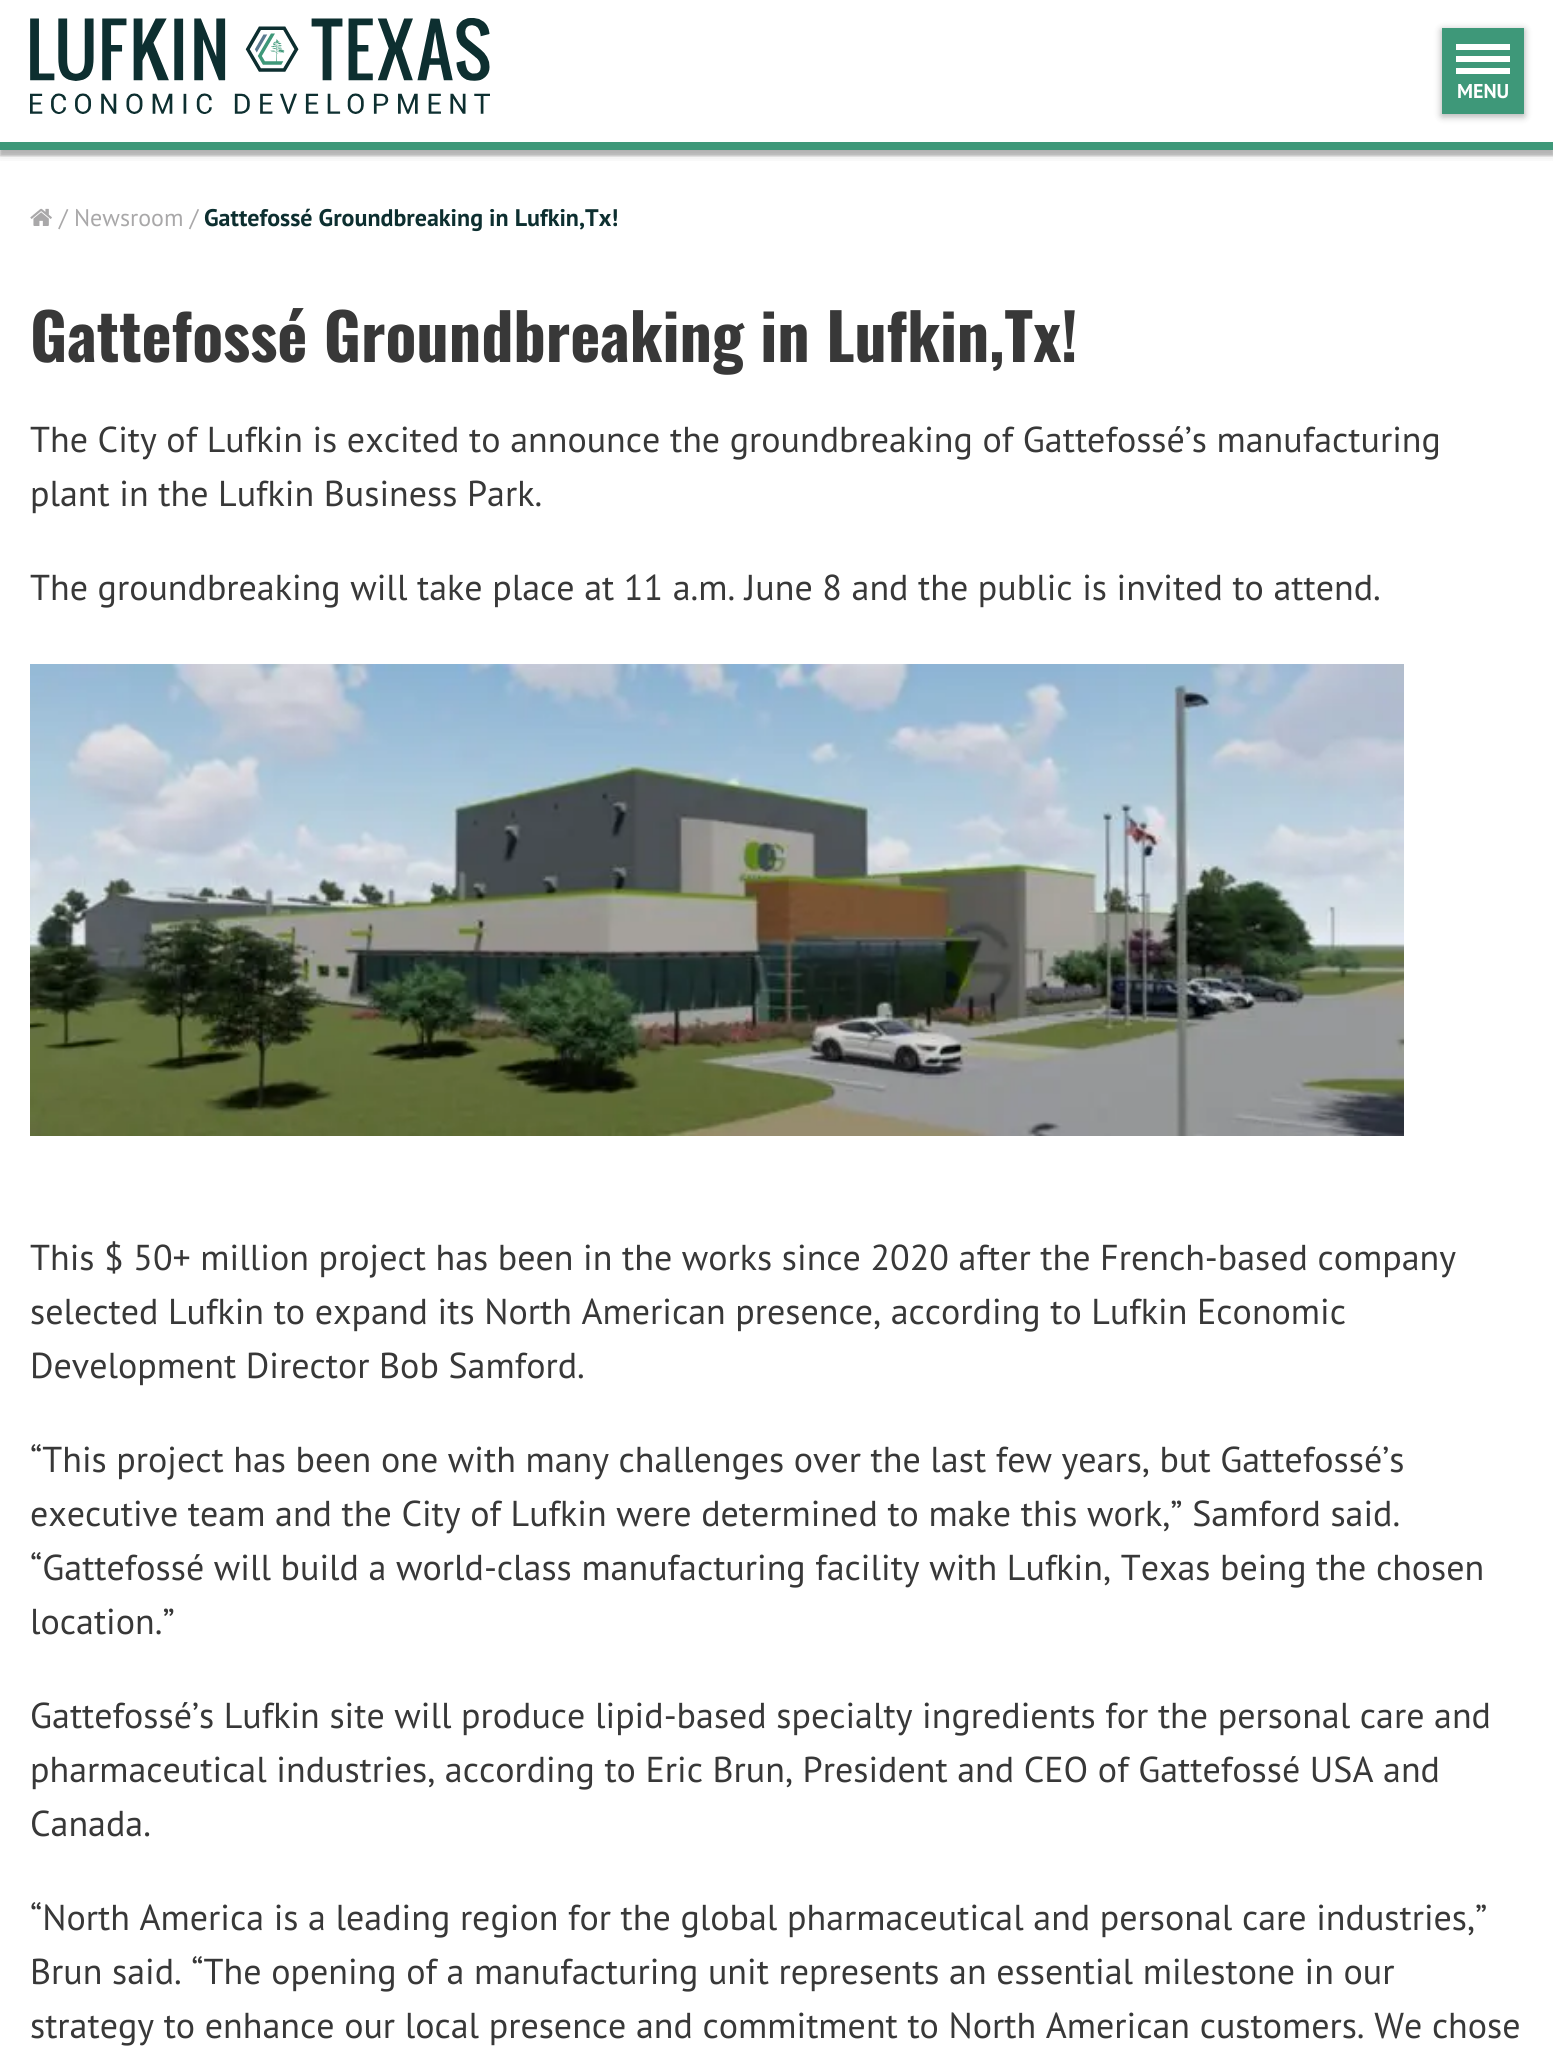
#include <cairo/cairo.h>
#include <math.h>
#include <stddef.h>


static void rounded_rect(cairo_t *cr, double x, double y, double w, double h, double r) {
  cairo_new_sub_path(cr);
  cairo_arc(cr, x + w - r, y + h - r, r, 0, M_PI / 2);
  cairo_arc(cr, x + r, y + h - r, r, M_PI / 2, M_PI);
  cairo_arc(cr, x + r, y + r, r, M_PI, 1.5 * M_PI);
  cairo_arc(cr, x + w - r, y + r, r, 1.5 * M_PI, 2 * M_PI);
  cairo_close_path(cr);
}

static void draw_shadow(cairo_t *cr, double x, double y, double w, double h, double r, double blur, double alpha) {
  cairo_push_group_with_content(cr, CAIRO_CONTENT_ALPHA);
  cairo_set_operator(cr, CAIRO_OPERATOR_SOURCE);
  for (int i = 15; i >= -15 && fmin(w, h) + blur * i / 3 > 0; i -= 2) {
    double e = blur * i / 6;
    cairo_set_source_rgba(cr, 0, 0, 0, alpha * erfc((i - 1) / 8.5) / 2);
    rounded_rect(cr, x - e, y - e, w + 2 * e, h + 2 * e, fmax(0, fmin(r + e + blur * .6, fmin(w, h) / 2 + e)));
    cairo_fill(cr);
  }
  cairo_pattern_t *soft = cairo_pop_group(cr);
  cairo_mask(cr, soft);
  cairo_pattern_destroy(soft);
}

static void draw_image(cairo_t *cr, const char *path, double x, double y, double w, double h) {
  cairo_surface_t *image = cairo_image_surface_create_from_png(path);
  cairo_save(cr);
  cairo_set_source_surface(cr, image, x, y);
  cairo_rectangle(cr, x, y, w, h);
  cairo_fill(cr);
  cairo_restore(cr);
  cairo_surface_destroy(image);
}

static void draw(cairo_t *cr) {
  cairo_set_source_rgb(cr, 1, 1, 1);
  cairo_paint(cr);
  cairo_save(cr);
  cairo_rectangle(cr, 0, 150, 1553, 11);
  cairo_clip(cr);
  cairo_set_source_rgb(cr, 0, 0, 0);
  draw_shadow(cr, 0, 4, 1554, 150, 0, 6, 0.16);
  cairo_restore(cr);
  cairo_save(cr);
  cairo_rectangle(cr, 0, 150, 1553, 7);
  cairo_clip(cr);
  cairo_set_source_rgb(cr, 0, 0, 0);
  draw_shadow(cr, 0, 6, 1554, 150, 0, 1, 0.21);
  cairo_restore(cr);
  cairo_set_source_rgb(cr, 62 / 255.0, 152 / 255.0, 121 / 255.0);
  cairo_rectangle(cr, 0, 142, 1553, 8);
  cairo_fill(cr);
  draw_image(cr, "images/1.png", 30, 18, 460, 96);
  cairo_set_source_rgb(cr, 0, 0, 0);
  draw_shadow(cr, 1442, 30, 82, 86, 0, 4, 0.34);
  cairo_set_source_rgb(cr, 62 / 255.0, 152 / 255.0, 121 / 255.0);
  cairo_rectangle(cr, 1442, 28, 82, 86);
  cairo_fill(cr);
  cairo_set_source_rgb(cr, 1, 1, 1);
  cairo_rectangle(cr, 1456, 44, 54, 6);
  cairo_fill(cr);
  cairo_rectangle(cr, 1456, 56, 54, 6);
  cairo_fill(cr);
  cairo_rectangle(cr, 1456, 68, 54, 6);
  cairo_fill(cr);
  draw_image(cr, "images/2.png", 30, 208, 22, 18);
  draw_image(cr, "images/3.png", 30, 664, 1374, 472);
  cairo_select_font_face(cr, "PT Sans", CAIRO_FONT_SLANT_NORMAL, CAIRO_FONT_WEIGHT_BOLD);
  cairo_set_font_size(cr, 20);
  cairo_move_to(cr, 1457, 98);
  cairo_show_text(cr, "MENU");
  cairo_select_font_face(cr, "PT Sans", CAIRO_FONT_SLANT_NORMAL, CAIRO_FONT_WEIGHT_NORMAL);
  cairo_set_font_size(cr, 24);
  cairo_set_source_rgb(cr, 169 / 255.0, 168 / 255.0, 169 / 255.0);
  cairo_move_to(cr, 59, 226);
  cairo_show_text(cr, "/ Newsroom /");
  cairo_select_font_face(cr, "PT Sans", CAIRO_FONT_SLANT_NORMAL, CAIRO_FONT_WEIGHT_BOLD);
  cairo_set_source_rgb(cr, 13 / 255.0, 47 / 255.0, 48 / 255.0);
  cairo_move_to(cr, 204, 226);
  cairo_show_text(cr, "Gattefossé Groundbreaking in Lufkin,Tx!");
  cairo_select_font_face(cr, "Oswald", CAIRO_FONT_SLANT_NORMAL, CAIRO_FONT_WEIGHT_BOLD);
  cairo_set_font_size(cr, 64);
  cairo_set_source_rgb(cr, 56 / 255.0, 56 / 255.0, 56 / 255.0);
  cairo_move_to(cr, 30, 362);
  cairo_show_text(cr, "Gattefossé Groundbreaking in Lufkin,Tx!");
  cairo_select_font_face(cr, "PT Sans", CAIRO_FONT_SLANT_NORMAL, CAIRO_FONT_WEIGHT_NORMAL);
  cairo_set_font_size(cr, 36);
  cairo_move_to(cr, 30, 452);
  cairo_show_text(cr, "The City of Lufkin is excited to announce the groundbreaking of Gattefossé’s manufacturing");
  cairo_move_to(cr, 30, 506);
  cairo_show_text(cr, "plant in the Lufkin Business Park.");
  cairo_move_to(cr, 30, 600);
  cairo_show_text(cr, "The groundbreaking will take place at 11 a.m. June 8 and the public is invited to attend.");
  cairo_move_to(cr, 30, 1270);
  cairo_show_text(cr, "This $ 50+ million project has been in the works since 2020 after the French-based company");
  cairo_move_to(cr, 30, 1324);
  cairo_show_text(cr, "selected Lufkin to expand its North American presence, according to Lufkin Economic");
  cairo_move_to(cr, 30, 1378);
  cairo_show_text(cr, "Development Director Bob Samford.");
  cairo_move_to(cr, 30, 1472);
  cairo_show_text(cr, "“This project has been one with many challenges over the last few years, but Gattefossé’s");
  cairo_move_to(cr, 30, 1526);
  cairo_show_text(cr, "executive team and the City of Lufkin were determined to make this work,” Samford said.");
  cairo_move_to(cr, 30, 1580);
  cairo_show_text(cr, "“Gattefossé will build a world-class manufacturing facility with Lufkin, Texas being the chosen");
  cairo_move_to(cr, 30, 1634);
  cairo_show_text(cr, "location.”");
  cairo_move_to(cr, 30, 1728);
  cairo_show_text(cr, "Gattefossé’s Lufkin site will produce lipid-based specialty ingredients for the personal care and");
  cairo_move_to(cr, 30, 1782);
  cairo_show_text(cr, "pharmaceutical industries, according to Eric Brun, President and CEO of Gattefossé USA and");
  cairo_move_to(cr, 30, 1836);
  cairo_show_text(cr, "Canada.");
  cairo_move_to(cr, 30, 1930);
  cairo_show_text(cr, "“North America is a leading region for the global pharmaceutical and personal care industries,”");
  cairo_move_to(cr, 30, 1984);
  cairo_show_text(cr, "Brun said. “The opening of a manufacturing unit represents an essential milestone in our");
  cairo_move_to(cr, 30, 2038);
  cairo_show_text(cr, "strategy to enhance our local presence and commitment to North American customers. We chose");
}

int main(void) {
  cairo_surface_t *surface = cairo_image_surface_create(CAIRO_FORMAT_RGB24, 1553, 2066);
  cairo_t *cr = cairo_create(surface);
  cairo_font_options_t *options = cairo_font_options_create();
  cairo_font_options_set_hint_metrics(options, CAIRO_HINT_METRICS_OFF);
  cairo_font_options_set_hint_style(options, CAIRO_HINT_STYLE_NONE);
  cairo_set_font_options(cr, options);
  cairo_set_miter_limit(cr, 4);
  draw(cr);
  cairo_surface_write_to_png(surface, "out.png");
  cairo_font_options_destroy(options);
  cairo_destroy(cr);
  cairo_surface_destroy(surface);
  return 0;
}
